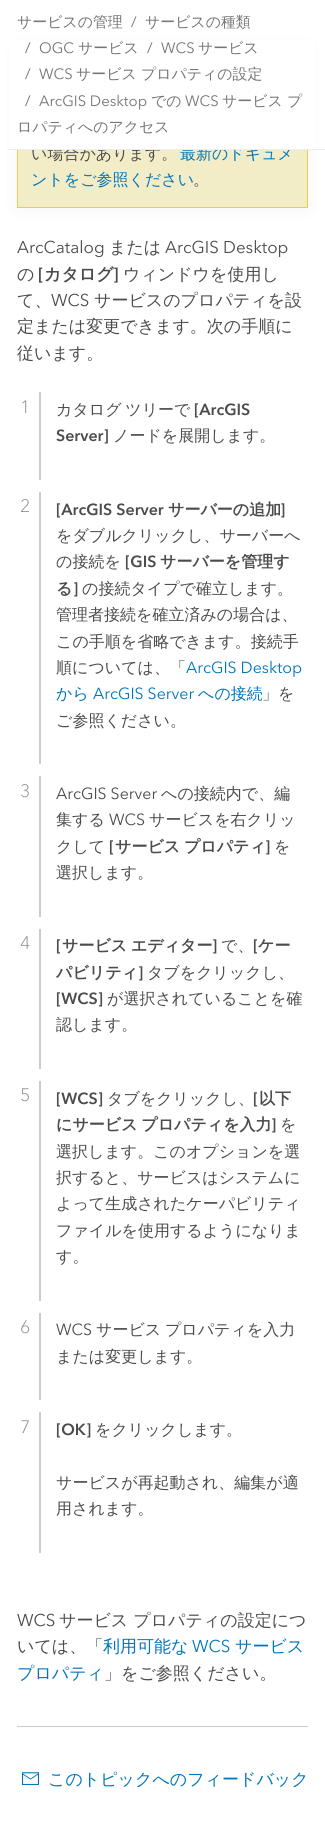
#include <cairo/cairo.h>
#include <math.h>
#include <stddef.h>


static void draw_spaced(cairo_t *cr, double x, double y, const char *s, double letter, double word) {
  cairo_move_to(cr, x, y);
  while (*s) {
    char ch[5] = {0};
    int n = 0;
    do ch[n++] = *s++; while ((*s & 0xC0) == 0x80);
    cairo_show_text(cr, ch);
    cairo_rel_move_to(cr, letter + word * (*ch == ' '), 0);
  }
}

static void rounded_rect(cairo_t *cr, double x, double y, double w, double h, double r) {
  cairo_new_sub_path(cr);
  cairo_arc(cr, x + w - r, y + h - r, r, 0, M_PI / 2);
  cairo_arc(cr, x + r, y + h - r, r, M_PI / 2, M_PI);
  cairo_arc(cr, x + r, y + r, r, M_PI, 1.5 * M_PI);
  cairo_arc(cr, x + w - r, y + r, r, 1.5 * M_PI, 2 * M_PI);
  cairo_close_path(cr);
}

static void draw_shadow(cairo_t *cr, double x, double y, double w, double h, double r, double blur, double alpha) {
  cairo_push_group_with_content(cr, CAIRO_CONTENT_ALPHA);
  cairo_set_operator(cr, CAIRO_OPERATOR_SOURCE);
  for (int i = 15; i >= -15 && fmin(w, h) + blur * i / 3 > 0; i -= 2) {
    double e = blur * i / 6;
    cairo_set_source_rgba(cr, 0, 0, 0, alpha * erfc((i - 1) / 8.5) / 2);
    rounded_rect(cr, x - e, y - e, w + 2 * e, h + 2 * e, fmax(0, fmin(r + e + blur * .6, fmin(w, h) / 2 + e)));
    cairo_fill(cr);
  }
  cairo_pattern_t *soft = cairo_pop_group(cr);
  cairo_mask(cr, soft);
  cairo_pattern_destroy(soft);
}

static void draw_image(cairo_t *cr, const char *path, double x, double y, double w, double h) {
  cairo_surface_t *image = cairo_image_surface_create_from_png(path);
  cairo_save(cr);
  cairo_set_source_surface(cr, image, x, y);
  cairo_rectangle(cr, x, y, w, h);
  cairo_fill(cr);
  cairo_restore(cr);
  cairo_surface_destroy(image);
}

static void draw(cairo_t *cr) {
  cairo_set_source_rgb(cr, 1, 1, 1);
  cairo_paint(cr);
  cairo_set_source_rgb(cr, 0, 0, 0);
  draw_shadow(cr, 17, 48, 291, 160, 0, 8, 0.05);
  cairo_set_source_rgb(cr, 243 / 255.0, 237 / 255.0, 199 / 255.0);
  cairo_rectangle(cr, 18, 150, 289, 57);
  cairo_fill(cr);
  cairo_rectangle(cr, 17.5, 48.5, 290, 159);
  cairo_set_source_rgb(cr, 228 / 255.0, 209 / 255.0, 84 / 255.0);
  cairo_set_line_width(cr, 1);
  cairo_stroke(cr);
  cairo_set_source_rgb(cr, 204 / 255.0, 204 / 255.0, 204 / 255.0);
  cairo_rectangle(cr, 39, 392, 2, 88);
  cairo_fill(cr);
  cairo_rectangle(cr, 39, 492, 2, 272);
  cairo_fill(cr);
  cairo_rectangle(cr, 39, 776, 2, 141);
  cairo_fill(cr);
  cairo_rectangle(cr, 39, 929, 2, 140);
  cairo_fill(cr);
  cairo_rectangle(cr, 39, 1081, 2, 220);
  cairo_fill(cr);
  cairo_rectangle(cr, 39, 1313, 2, 87);
  cairo_fill(cr);
  cairo_rectangle(cr, 39, 1412, 2, 141);
  cairo_fill(cr);
  cairo_rectangle(cr, 17, 1726, 291, 1);
  cairo_fill(cr);
  draw_image(cr, "images/1.png", 22, 1772, 17, 13);
  cairo_select_font_face(cr, "WenQuanYi Zen Hei Medium", CAIRO_FONT_SLANT_NORMAL, CAIRO_FONT_WEIGHT_NORMAL);
  cairo_set_font_size(cr, 14.9);
  cairo_set_source_rgb(cr, 117 / 255.0, 117 / 255.0, 117 / 255.0);
  cairo_move_to(cr, 17, 27);
  cairo_show_text(cr, "サービスの管理");
  cairo_select_font_face(cr, "Avenir Next", CAIRO_FONT_SLANT_NORMAL, CAIRO_FONT_WEIGHT_NORMAL);
  cairo_set_source_rgb(cr, 110 / 255.0, 110 / 255.0, 110 / 255.0);
  cairo_move_to(cr, 131, 27);
  cairo_show_text(cr, "/");
  cairo_select_font_face(cr, "WenQuanYi Zen Hei Medium", CAIRO_FONT_SLANT_NORMAL, CAIRO_FONT_WEIGHT_NORMAL);
  cairo_set_source_rgb(cr, 117 / 255.0, 117 / 255.0, 117 / 255.0);
  cairo_move_to(cr, 145, 27);
  cairo_show_text(cr, "サービスの種類");
  cairo_set_font_size(cr, 16);
  cairo_set_source_rgb(cr, 76 / 255.0, 76 / 255.0, 76 / 255.0);
  cairo_move_to(cr, 31, 159);
  cairo_show_text(cr, "い場合があります。");
  cairo_set_source_rgb(cr, 0, 118 / 255.0, 188 / 255.0);
  cairo_move_to(cr, 180, 159);
  cairo_show_text(cr, "最新のドキュメ");
  cairo_set_source_rgb(cr, 1, 1, 1);
  cairo_rectangle(cr, 10, 41, 305, 108);
  cairo_fill(cr);
  cairo_set_font_size(cr, 14.9);
  cairo_set_source_rgb(cr, 117 / 255.0, 117 / 255.0, 117 / 255.0);
  cairo_move_to(cr, 17, 132);
  cairo_show_text(cr, "ロパティへのアクセス");
  cairo_move_to(cr, 287, 106);
  cairo_show_text(cr, "プ");
  cairo_move_to(cr, 222, 106);
  cairo_show_text(cr, "サービス");
  cairo_select_font_face(cr, "Avenir Next", CAIRO_FONT_SLANT_NORMAL, CAIRO_FONT_WEIGHT_NORMAL);
  cairo_move_to(cr, 185, 106);
  cairo_show_text(cr, "WCS");
  cairo_select_font_face(cr, "WenQuanYi Zen Hei Medium", CAIRO_FONT_SLANT_NORMAL, CAIRO_FONT_WEIGHT_NORMAL);
  cairo_move_to(cr, 151, 106);
  cairo_show_text(cr, "での");
  cairo_select_font_face(cr, "Avenir Next", CAIRO_FONT_SLANT_NORMAL, CAIRO_FONT_WEIGHT_NORMAL);
  cairo_move_to(cr, 39, 106);
  cairo_show_text(cr, "ArcGIS Desktop");
  cairo_set_source_rgb(cr, 110 / 255.0, 110 / 255.0, 110 / 255.0);
  cairo_move_to(cr, 25, 106);
  cairo_show_text(cr, "/");
  cairo_select_font_face(cr, "WenQuanYi Zen Hei Medium", CAIRO_FONT_SLANT_NORMAL, CAIRO_FONT_WEIGHT_NORMAL);
  cairo_set_source_rgb(cr, 117 / 255.0, 117 / 255.0, 117 / 255.0);
  cairo_move_to(cr, 76, 79);
  cairo_show_text(cr, "サービス プロパティの設定");
  cairo_select_font_face(cr, "Avenir Next", CAIRO_FONT_SLANT_NORMAL, CAIRO_FONT_WEIGHT_NORMAL);
  cairo_move_to(cr, 39, 79);
  cairo_show_text(cr, "WCS");
  cairo_set_source_rgb(cr, 110 / 255.0, 110 / 255.0, 110 / 255.0);
  cairo_move_to(cr, 25, 79);
  cairo_show_text(cr, "/");
  cairo_select_font_face(cr, "WenQuanYi Zen Hei Medium", CAIRO_FONT_SLANT_NORMAL, CAIRO_FONT_WEIGHT_NORMAL);
  cairo_set_source_rgb(cr, 117 / 255.0, 117 / 255.0, 117 / 255.0);
  cairo_move_to(cr, 198, 53);
  cairo_show_text(cr, "サービス");
  cairo_select_font_face(cr, "Avenir Next", CAIRO_FONT_SLANT_NORMAL, CAIRO_FONT_WEIGHT_NORMAL);
  cairo_move_to(cr, 161, 53);
  cairo_show_text(cr, "WCS");
  cairo_set_source_rgb(cr, 110 / 255.0, 110 / 255.0, 110 / 255.0);
  cairo_move_to(cr, 147, 53);
  cairo_show_text(cr, "/");
  cairo_select_font_face(cr, "WenQuanYi Zen Hei Medium", CAIRO_FONT_SLANT_NORMAL, CAIRO_FONT_WEIGHT_NORMAL);
  cairo_set_source_rgb(cr, 117 / 255.0, 117 / 255.0, 117 / 255.0);
  cairo_move_to(cr, 78, 53);
  cairo_show_text(cr, "サービス");
  cairo_select_font_face(cr, "Avenir Next", CAIRO_FONT_SLANT_NORMAL, CAIRO_FONT_WEIGHT_NORMAL);
  cairo_move_to(cr, 39, 53);
  cairo_show_text(cr, "OGC");
  cairo_set_source_rgb(cr, 110 / 255.0, 110 / 255.0, 110 / 255.0);
  cairo_move_to(cr, 25, 53);
  cairo_show_text(cr, "/");
  cairo_set_source_rgb(cr, 237 / 255.0, 237 / 255.0, 237 / 255.0);
  cairo_rectangle(cr, 8, 149, 317, 1);
  cairo_fill(cr);
  cairo_select_font_face(cr, "WenQuanYi Zen Hei Medium", CAIRO_FONT_SLANT_NORMAL, CAIRO_FONT_WEIGHT_NORMAL);
  cairo_set_font_size(cr, 16);
  cairo_set_source_rgb(cr, 0, 118 / 255.0, 188 / 255.0);
  cairo_move_to(cr, 31, 185);
  cairo_show_text(cr, "ントをご参照ください");
  cairo_set_source_rgb(cr, 76 / 255.0, 76 / 255.0, 76 / 255.0);
  cairo_move_to(cr, 193, 185);
  cairo_show_text(cr, "。");
  cairo_select_font_face(cr, "Avenir Next", CAIRO_FONT_SLANT_NORMAL, CAIRO_FONT_WEIGHT_NORMAL);
  cairo_set_font_size(cr, 17);
  cairo_move_to(cr, 17, 253);
  cairo_show_text(cr, "ArcCatalog");
  cairo_select_font_face(cr, "WenQuanYi Zen Hei Medium", CAIRO_FONT_SLANT_NORMAL, CAIRO_FONT_WEIGHT_NORMAL);
  cairo_move_to(cr, 109, 253);
  cairo_show_text(cr, "または");
  cairo_select_font_face(cr, "Avenir Next", CAIRO_FONT_SLANT_NORMAL, CAIRO_FONT_WEIGHT_NORMAL);
  cairo_move_to(cr, 165, 253);
  cairo_show_text(cr, "ArcGIS Desktop");
  cairo_select_font_face(cr, "WenQuanYi Zen Hei Medium", CAIRO_FONT_SLANT_NORMAL, CAIRO_FONT_WEIGHT_NORMAL);
  cairo_move_to(cr, 17, 280);
  cairo_show_text(cr, "の");
  cairo_select_font_face(cr, "Avenir Next", CAIRO_FONT_SLANT_NORMAL, CAIRO_FONT_WEIGHT_BOLD);
  cairo_move_to(cr, 38, 280);
  cairo_show_text(cr, "[");
  cairo_select_font_face(cr, "WenQuanYi Zen Hei", CAIRO_FONT_SLANT_NORMAL, CAIRO_FONT_WEIGHT_BOLD);
  cairo_move_to(cr, 44, 280);
  cairo_show_text(cr, "カタログ");
  cairo_select_font_face(cr, "Avenir Next", CAIRO_FONT_SLANT_NORMAL, CAIRO_FONT_WEIGHT_BOLD);
  cairo_move_to(cr, 113, 280);
  cairo_show_text(cr, "]");
  cairo_select_font_face(cr, "WenQuanYi Zen Hei Medium", CAIRO_FONT_SLANT_NORMAL, CAIRO_FONT_WEIGHT_NORMAL);
  cairo_move_to(cr, 123, 280);
  cairo_show_text(cr, "ウィンドウを使用し");
  cairo_move_to(cr, 17, 306);
  cairo_show_text(cr, "て、");
  cairo_select_font_face(cr, "Avenir Next", CAIRO_FONT_SLANT_NORMAL, CAIRO_FONT_WEIGHT_NORMAL);
  cairo_move_to(cr, 51, 306);
  cairo_show_text(cr, "WCS");
  cairo_select_font_face(cr, "WenQuanYi Zen Hei Medium", CAIRO_FONT_SLANT_NORMAL, CAIRO_FONT_WEIGHT_NORMAL);
  cairo_move_to(cr, 94, 306);
  cairo_show_text(cr, "サービスのプロパティを設");
  cairo_move_to(cr, 17, 332);
  cairo_show_text(cr, "定または変更できます。次の手順に");
  cairo_move_to(cr, 17, 359);
  cairo_show_text(cr, "従います。");
  cairo_select_font_face(cr, "Avenir Next Light", CAIRO_FONT_SLANT_NORMAL, CAIRO_FONT_WEIGHT_NORMAL);
  cairo_set_font_size(cr, 18);
  cairo_set_source_rgb(cr, 149 / 255.0, 149 / 255.0, 149 / 255.0);
  cairo_move_to(cr, 20, 413);
  cairo_show_text(cr, "1");
  cairo_select_font_face(cr, "WenQuanYi Zen Hei Medium", CAIRO_FONT_SLANT_NORMAL, CAIRO_FONT_WEIGHT_NORMAL);
  cairo_set_font_size(cr, 16);
  cairo_set_source_rgb(cr, 76 / 255.0, 76 / 255.0, 76 / 255.0);
  draw_spaced(cr, 56, 415, "カタログ ツリーで", 0, -1);
  cairo_select_font_face(cr, "Avenir Next", CAIRO_FONT_SLANT_NORMAL, CAIRO_FONT_WEIGHT_BOLD);
  cairo_move_to(cr, 194, 415);
  cairo_show_text(cr, "[ArcGIS");
  cairo_move_to(cr, 56, 441);
  cairo_show_text(cr, "Server]");
  cairo_select_font_face(cr, "WenQuanYi Zen Hei Medium", CAIRO_FONT_SLANT_NORMAL, CAIRO_FONT_WEIGHT_NORMAL);
  cairo_move_to(cr, 113, 441);
  cairo_show_text(cr, "ノードを展開します。");
  cairo_select_font_face(cr, "Avenir Next Light", CAIRO_FONT_SLANT_NORMAL, CAIRO_FONT_WEIGHT_NORMAL);
  cairo_set_font_size(cr, 18);
  cairo_set_source_rgb(cr, 149 / 255.0, 149 / 255.0, 149 / 255.0);
  cairo_move_to(cr, 20, 512);
  cairo_show_text(cr, "2");
  cairo_select_font_face(cr, "Avenir Next", CAIRO_FONT_SLANT_NORMAL, CAIRO_FONT_WEIGHT_BOLD);
  cairo_set_font_size(cr, 16);
  cairo_set_source_rgb(cr, 76 / 255.0, 76 / 255.0, 76 / 255.0);
  cairo_move_to(cr, 56, 515);
  cairo_show_text(cr, "[ArcGIS Server");
  cairo_select_font_face(cr, "WenQuanYi Zen Hei", CAIRO_FONT_SLANT_NORMAL, CAIRO_FONT_WEIGHT_BOLD);
  cairo_move_to(cr, 168, 515);
  cairo_show_text(cr, "サーバーの追加");
  cairo_select_font_face(cr, "Avenir Next", CAIRO_FONT_SLANT_NORMAL, CAIRO_FONT_WEIGHT_BOLD);
  cairo_move_to(cr, 280, 515);
  cairo_show_text(cr, "]");
  cairo_select_font_face(cr, "WenQuanYi Zen Hei Medium", CAIRO_FONT_SLANT_NORMAL, CAIRO_FONT_WEIGHT_NORMAL);
  cairo_move_to(cr, 56, 541);
  cairo_show_text(cr, "をダブルクリックし、サーバーへ");
  cairo_move_to(cr, 56, 567);
  cairo_show_text(cr, "の接続を");
  cairo_select_font_face(cr, "Avenir Next", CAIRO_FONT_SLANT_NORMAL, CAIRO_FONT_WEIGHT_BOLD);
  cairo_move_to(cr, 125, 567);
  cairo_show_text(cr, "[GIS");
  cairo_select_font_face(cr, "WenQuanYi Zen Hei", CAIRO_FONT_SLANT_NORMAL, CAIRO_FONT_WEIGHT_BOLD);
  cairo_move_to(cr, 160, 567);
  cairo_show_text(cr, "サーバーを管理す");
  cairo_move_to(cr, 56, 594);
  cairo_show_text(cr, "る");
  cairo_select_font_face(cr, "Avenir Next", CAIRO_FONT_SLANT_NORMAL, CAIRO_FONT_WEIGHT_BOLD);
  cairo_move_to(cr, 73, 594);
  cairo_show_text(cr, "]");
  cairo_select_font_face(cr, "WenQuanYi Zen Hei Medium", CAIRO_FONT_SLANT_NORMAL, CAIRO_FONT_WEIGHT_NORMAL);
  cairo_move_to(cr, 82, 594);
  cairo_show_text(cr, "の接続タイプで確立します。");
  cairo_move_to(cr, 56, 620);
  cairo_show_text(cr, "管理者接続を確立済みの場合は、");
  cairo_move_to(cr, 56, 647);
  cairo_show_text(cr, "この手順を省略できます。接続手");
  cairo_move_to(cr, 56, 673);
  cairo_show_text(cr, "順については、「");
  cairo_select_font_face(cr, "Avenir Next", CAIRO_FONT_SLANT_NORMAL, CAIRO_FONT_WEIGHT_NORMAL);
  cairo_set_source_rgb(cr, 0, 118 / 255.0, 188 / 255.0);
  cairo_move_to(cr, 186, 673);
  cairo_show_text(cr, "ArcGIS Desktop");
  cairo_select_font_face(cr, "WenQuanYi Zen Hei Medium", CAIRO_FONT_SLANT_NORMAL, CAIRO_FONT_WEIGHT_NORMAL);
  cairo_move_to(cr, 56, 699);
  cairo_show_text(cr, "から");
  cairo_select_font_face(cr, "Avenir Next", CAIRO_FONT_SLANT_NORMAL, CAIRO_FONT_WEIGHT_NORMAL);
  cairo_move_to(cr, 93, 699);
  cairo_show_text(cr, "ArcGIS Server");
  cairo_select_font_face(cr, "WenQuanYi Zen Hei Medium", CAIRO_FONT_SLANT_NORMAL, CAIRO_FONT_WEIGHT_NORMAL);
  cairo_move_to(cr, 198, 699);
  cairo_show_text(cr, "への接続");
  cairo_set_source_rgb(cr, 76 / 255.0, 76 / 255.0, 76 / 255.0);
  cairo_move_to(cr, 262, 699);
  cairo_show_text(cr, "」を");
  cairo_move_to(cr, 56, 726);
  cairo_show_text(cr, "ご参照ください。");
  cairo_select_font_face(cr, "Avenir Next Light", CAIRO_FONT_SLANT_NORMAL, CAIRO_FONT_WEIGHT_NORMAL);
  cairo_set_font_size(cr, 18);
  cairo_set_source_rgb(cr, 149 / 255.0, 149 / 255.0, 149 / 255.0);
  cairo_move_to(cr, 20, 797);
  cairo_show_text(cr, "3");
  cairo_select_font_face(cr, "Avenir Next", CAIRO_FONT_SLANT_NORMAL, CAIRO_FONT_WEIGHT_NORMAL);
  cairo_set_font_size(cr, 16);
  cairo_set_source_rgb(cr, 76 / 255.0, 76 / 255.0, 76 / 255.0);
  cairo_move_to(cr, 56, 799);
  cairo_show_text(cr, "ArcGIS Server");
  cairo_select_font_face(cr, "WenQuanYi Zen Hei Medium", CAIRO_FONT_SLANT_NORMAL, CAIRO_FONT_WEIGHT_NORMAL);
  cairo_move_to(cr, 161, 799);
  cairo_show_text(cr, "への接続内で、編");
  cairo_move_to(cr, 56, 825);
  cairo_show_text(cr, "集する");
  cairo_select_font_face(cr, "Avenir Next", CAIRO_FONT_SLANT_NORMAL, CAIRO_FONT_WEIGHT_NORMAL);
  cairo_move_to(cr, 109, 825);
  cairo_show_text(cr, "WCS");
  cairo_select_font_face(cr, "WenQuanYi Zen Hei Medium", CAIRO_FONT_SLANT_NORMAL, CAIRO_FONT_WEIGHT_NORMAL);
  cairo_move_to(cr, 149, 825);
  cairo_show_text(cr, "サービスを右クリッ");
  cairo_move_to(cr, 56, 852);
  cairo_show_text(cr, "クして");
  cairo_select_font_face(cr, "Avenir Next", CAIRO_FONT_SLANT_NORMAL, CAIRO_FONT_WEIGHT_BOLD);
  cairo_move_to(cr, 109, 852);
  cairo_show_text(cr, "[");
  cairo_select_font_face(cr, "WenQuanYi Zen Hei", CAIRO_FONT_SLANT_NORMAL, CAIRO_FONT_WEIGHT_BOLD);
  draw_spaced(cr, 115, 852, "サービス プロパティ", 0, -1);
  cairo_select_font_face(cr, "Avenir Next", CAIRO_FONT_SLANT_NORMAL, CAIRO_FONT_WEIGHT_BOLD);
  cairo_move_to(cr, 265, 852);
  cairo_show_text(cr, "]");
  cairo_select_font_face(cr, "WenQuanYi Zen Hei Medium", CAIRO_FONT_SLANT_NORMAL, CAIRO_FONT_WEIGHT_NORMAL);
  cairo_move_to(cr, 274, 852);
  cairo_show_text(cr, "を");
  cairo_move_to(cr, 56, 878);
  cairo_show_text(cr, "選択します。");
  cairo_select_font_face(cr, "Avenir Next Light", CAIRO_FONT_SLANT_NORMAL, CAIRO_FONT_WEIGHT_NORMAL);
  cairo_set_font_size(cr, 18);
  cairo_set_source_rgb(cr, 149 / 255.0, 149 / 255.0, 149 / 255.0);
  cairo_move_to(cr, 20, 949);
  cairo_show_text(cr, "4");
  cairo_select_font_face(cr, "Avenir Next", CAIRO_FONT_SLANT_NORMAL, CAIRO_FONT_WEIGHT_BOLD);
  cairo_set_font_size(cr, 16);
  cairo_set_source_rgb(cr, 76 / 255.0, 76 / 255.0, 76 / 255.0);
  cairo_move_to(cr, 56, 951);
  cairo_show_text(cr, "[");
  cairo_select_font_face(cr, "WenQuanYi Zen Hei", CAIRO_FONT_SLANT_NORMAL, CAIRO_FONT_WEIGHT_BOLD);
  draw_spaced(cr, 62, 951, "サービス エディター", 0, -1);
  cairo_select_font_face(cr, "Avenir Next", CAIRO_FONT_SLANT_NORMAL, CAIRO_FONT_WEIGHT_BOLD);
  cairo_move_to(cr, 212, 951);
  cairo_show_text(cr, "]");
  cairo_select_font_face(cr, "WenQuanYi Zen Hei Medium", CAIRO_FONT_SLANT_NORMAL, CAIRO_FONT_WEIGHT_NORMAL);
  cairo_move_to(cr, 221, 951);
  cairo_show_text(cr, "で、");
  cairo_select_font_face(cr, "Avenir Next", CAIRO_FONT_SLANT_NORMAL, CAIRO_FONT_WEIGHT_BOLD);
  cairo_move_to(cr, 253, 951);
  cairo_show_text(cr, "[");
  cairo_select_font_face(cr, "WenQuanYi Zen Hei", CAIRO_FONT_SLANT_NORMAL, CAIRO_FONT_WEIGHT_BOLD);
  cairo_move_to(cr, 258, 951);
  cairo_show_text(cr, "ケー");
  cairo_move_to(cr, 56, 978);
  cairo_show_text(cr, "パビリティ");
  cairo_select_font_face(cr, "Avenir Next", CAIRO_FONT_SLANT_NORMAL, CAIRO_FONT_WEIGHT_BOLD);
  cairo_move_to(cr, 138, 978);
  cairo_show_text(cr, "]");
  cairo_select_font_face(cr, "WenQuanYi Zen Hei Medium", CAIRO_FONT_SLANT_NORMAL, CAIRO_FONT_WEIGHT_NORMAL);
  cairo_move_to(cr, 147, 978);
  cairo_show_text(cr, "タブをクリックし、");
  cairo_select_font_face(cr, "Avenir Next", CAIRO_FONT_SLANT_NORMAL, CAIRO_FONT_WEIGHT_BOLD);
  cairo_move_to(cr, 56, 1004);
  cairo_show_text(cr, "[WCS]");
  cairo_select_font_face(cr, "WenQuanYi Zen Hei Medium", CAIRO_FONT_SLANT_NORMAL, CAIRO_FONT_WEIGHT_NORMAL);
  cairo_move_to(cr, 107, 1004);
  cairo_show_text(cr, "が選択されていることを確");
  cairo_move_to(cr, 56, 1030);
  cairo_show_text(cr, "認します。");
  cairo_select_font_face(cr, "Avenir Next Light", CAIRO_FONT_SLANT_NORMAL, CAIRO_FONT_WEIGHT_NORMAL);
  cairo_set_font_size(cr, 18);
  cairo_set_source_rgb(cr, 149 / 255.0, 149 / 255.0, 149 / 255.0);
  cairo_move_to(cr, 20, 1101);
  cairo_show_text(cr, "5");
  cairo_select_font_face(cr, "Avenir Next", CAIRO_FONT_SLANT_NORMAL, CAIRO_FONT_WEIGHT_BOLD);
  cairo_set_font_size(cr, 16);
  cairo_set_source_rgb(cr, 76 / 255.0, 76 / 255.0, 76 / 255.0);
  cairo_move_to(cr, 56, 1104);
  cairo_show_text(cr, "[WCS]");
  cairo_select_font_face(cr, "WenQuanYi Zen Hei Medium", CAIRO_FONT_SLANT_NORMAL, CAIRO_FONT_WEIGHT_NORMAL);
  cairo_move_to(cr, 107, 1104);
  cairo_show_text(cr, "タブをクリックし、");
  cairo_select_font_face(cr, "Avenir Next", CAIRO_FONT_SLANT_NORMAL, CAIRO_FONT_WEIGHT_BOLD);
  cairo_move_to(cr, 253, 1104);
  cairo_show_text(cr, "[");
  cairo_select_font_face(cr, "WenQuanYi Zen Hei", CAIRO_FONT_SLANT_NORMAL, CAIRO_FONT_WEIGHT_BOLD);
  cairo_move_to(cr, 259, 1104);
  cairo_show_text(cr, "以下");
  draw_spaced(cr, 56, 1130, "にサービス プロパティを入力", 0, -1);
  cairo_select_font_face(cr, "Avenir Next", CAIRO_FONT_SLANT_NORMAL, CAIRO_FONT_WEIGHT_BOLD);
  cairo_move_to(cr, 271, 1130);
  cairo_show_text(cr, "]");
  cairo_select_font_face(cr, "WenQuanYi Zen Hei Medium", CAIRO_FONT_SLANT_NORMAL, CAIRO_FONT_WEIGHT_NORMAL);
  cairo_move_to(cr, 280, 1130);
  cairo_show_text(cr, "を");
  cairo_move_to(cr, 56, 1157);
  cairo_show_text(cr, "選択します。このオプションを選");
  cairo_move_to(cr, 56, 1183);
  cairo_show_text(cr, "択すると、サービスはシステムに");
  cairo_move_to(cr, 56, 1209);
  cairo_show_text(cr, "よって生成されたケーパビリティ");
  cairo_move_to(cr, 56, 1236);
  cairo_show_text(cr, "ファイルを使用するようになりま");
  cairo_move_to(cr, 56, 1262);
  cairo_show_text(cr, "す。");
  cairo_select_font_face(cr, "Avenir Next Light", CAIRO_FONT_SLANT_NORMAL, CAIRO_FONT_WEIGHT_NORMAL);
  cairo_set_font_size(cr, 18);
  cairo_set_source_rgb(cr, 149 / 255.0, 149 / 255.0, 149 / 255.0);
  cairo_move_to(cr, 20, 1333);
  cairo_show_text(cr, "6");
  cairo_select_font_face(cr, "Avenir Next", CAIRO_FONT_SLANT_NORMAL, CAIRO_FONT_WEIGHT_NORMAL);
  cairo_set_font_size(cr, 16);
  cairo_set_source_rgb(cr, 76 / 255.0, 76 / 255.0, 76 / 255.0);
  cairo_move_to(cr, 56, 1335);
  cairo_show_text(cr, "WCS");
  cairo_select_font_face(cr, "WenQuanYi Zen Hei Medium", CAIRO_FONT_SLANT_NORMAL, CAIRO_FONT_WEIGHT_NORMAL);
  draw_spaced(cr, 96, 1335, "サービス プロパティを入力", 0, -1);
  cairo_move_to(cr, 56, 1362);
  cairo_show_text(cr, "または変更します。");
  cairo_select_font_face(cr, "Avenir Next Light", CAIRO_FONT_SLANT_NORMAL, CAIRO_FONT_WEIGHT_NORMAL);
  cairo_set_font_size(cr, 18);
  cairo_set_source_rgb(cr, 149 / 255.0, 149 / 255.0, 149 / 255.0);
  cairo_move_to(cr, 20, 1433);
  cairo_show_text(cr, "7");
  cairo_select_font_face(cr, "Avenir Next", CAIRO_FONT_SLANT_NORMAL, CAIRO_FONT_WEIGHT_BOLD);
  cairo_set_font_size(cr, 16);
  cairo_set_source_rgb(cr, 76 / 255.0, 76 / 255.0, 76 / 255.0);
  cairo_move_to(cr, 56, 1435);
  cairo_show_text(cr, "[OK]");
  cairo_select_font_face(cr, "WenQuanYi Zen Hei Medium", CAIRO_FONT_SLANT_NORMAL, CAIRO_FONT_WEIGHT_NORMAL);
  cairo_move_to(cr, 95, 1435);
  cairo_show_text(cr, "をクリックします。");
  cairo_move_to(cr, 56, 1488);
  cairo_show_text(cr, "サービスが再起動され、編集が適");
  cairo_move_to(cr, 56, 1514);
  cairo_show_text(cr, "用されます。");
  cairo_select_font_face(cr, "Avenir Next", CAIRO_FONT_SLANT_NORMAL, CAIRO_FONT_WEIGHT_NORMAL);
  cairo_set_font_size(cr, 17);
  cairo_move_to(cr, 17, 1626);
  cairo_show_text(cr, "WCS");
  cairo_select_font_face(cr, "WenQuanYi Zen Hei Medium", CAIRO_FONT_SLANT_NORMAL, CAIRO_FONT_WEIGHT_NORMAL);
  cairo_move_to(cr, 59, 1626);
  cairo_show_text(cr, "サービス プロパティの設定につ");
  cairo_move_to(cr, 17, 1652);
  cairo_show_text(cr, "いては、「");
  cairo_set_source_rgb(cr, 0, 118 / 255.0, 188 / 255.0);
  cairo_move_to(cr, 103, 1652);
  cairo_show_text(cr, "利用可能な");
  cairo_select_font_face(cr, "Avenir Next", CAIRO_FONT_SLANT_NORMAL, CAIRO_FONT_WEIGHT_NORMAL);
  cairo_move_to(cr, 192, 1652);
  cairo_show_text(cr, "WCS");
  cairo_select_font_face(cr, "WenQuanYi Zen Hei Medium", CAIRO_FONT_SLANT_NORMAL, CAIRO_FONT_WEIGHT_NORMAL);
  cairo_move_to(cr, 235, 1652);
  cairo_show_text(cr, "サービス");
  cairo_move_to(cr, 17, 1679);
  cairo_show_text(cr, "プロパティ");
  cairo_set_source_rgb(cr, 76 / 255.0, 76 / 255.0, 76 / 255.0);
  cairo_move_to(cr, 104, 1679);
  cairo_show_text(cr, "」をご参照ください。");
  cairo_set_source_rgb(cr, 0, 118 / 255.0, 188 / 255.0);
  cairo_move_to(cr, 48, 1785);
  cairo_show_text(cr, "このトピックへのフィードバック");
}

int main(void) {
  cairo_surface_t *surface = cairo_image_surface_create(CAIRO_FORMAT_RGB24, 325, 1821);
  cairo_t *cr = cairo_create(surface);
  cairo_font_options_t *options = cairo_font_options_create();
  cairo_font_options_set_hint_metrics(options, CAIRO_HINT_METRICS_OFF);
  cairo_font_options_set_hint_style(options, CAIRO_HINT_STYLE_NONE);
  cairo_set_font_options(cr, options);
  cairo_set_miter_limit(cr, 4);
  draw(cr);
  cairo_surface_write_to_png(surface, "out.png");
  cairo_font_options_destroy(options);
  cairo_destroy(cr);
  cairo_surface_destroy(surface);
  return 0;
}
